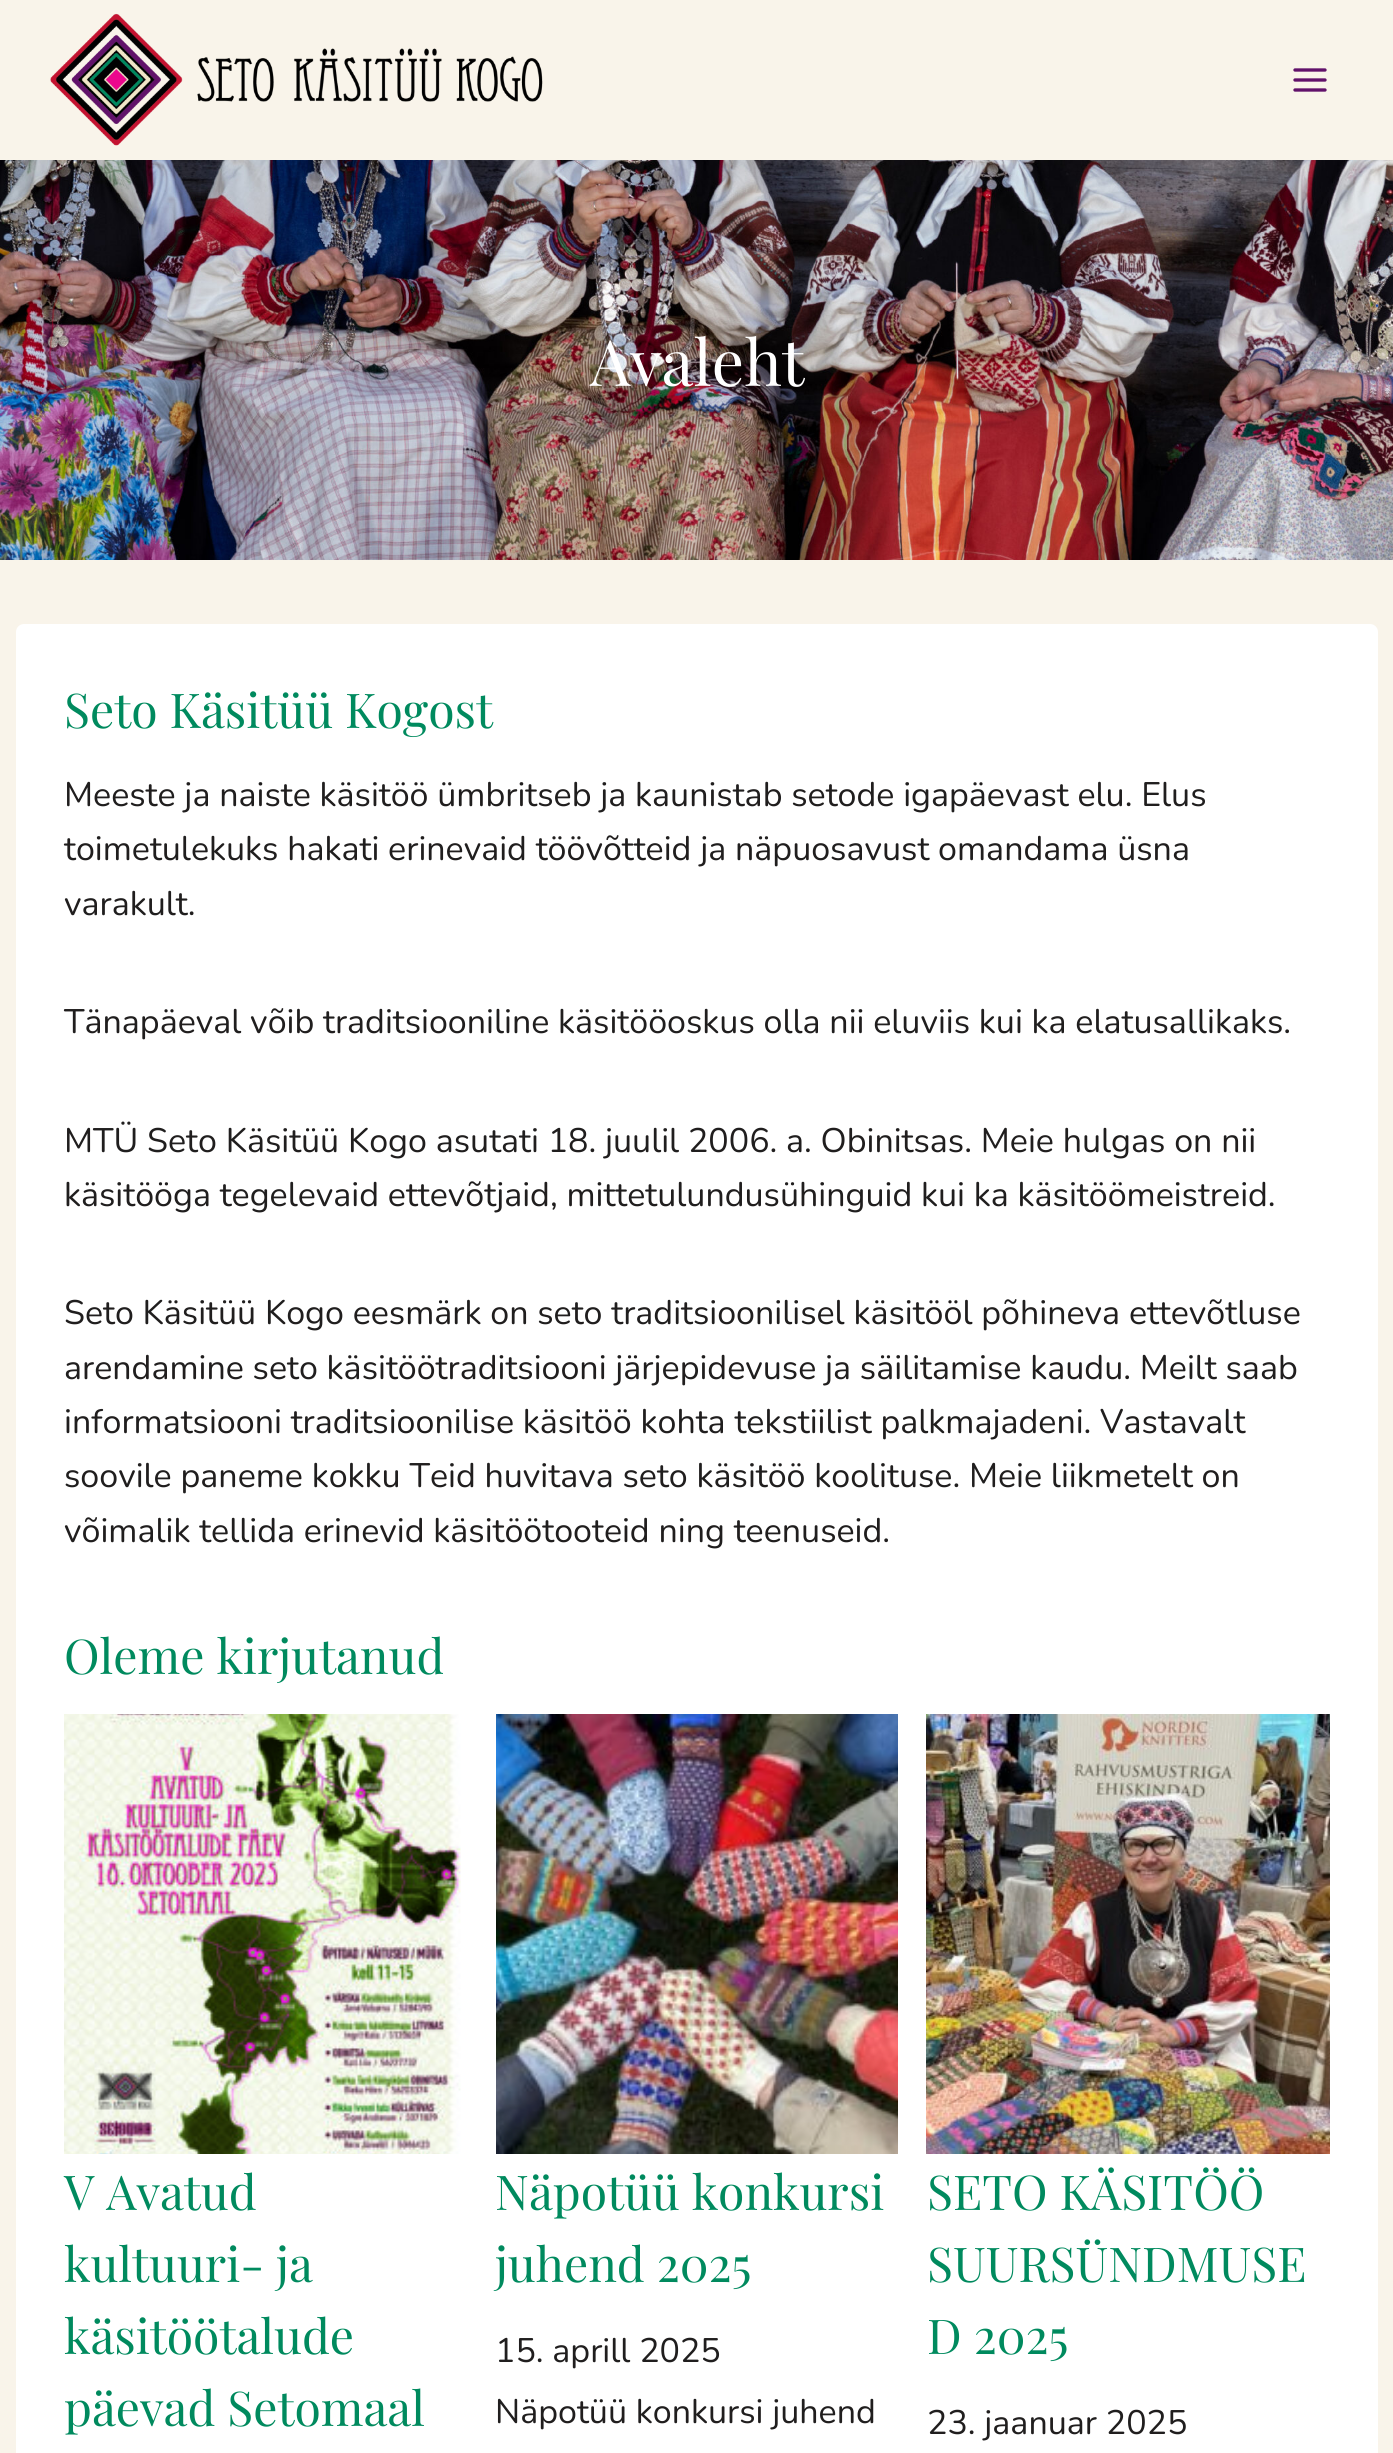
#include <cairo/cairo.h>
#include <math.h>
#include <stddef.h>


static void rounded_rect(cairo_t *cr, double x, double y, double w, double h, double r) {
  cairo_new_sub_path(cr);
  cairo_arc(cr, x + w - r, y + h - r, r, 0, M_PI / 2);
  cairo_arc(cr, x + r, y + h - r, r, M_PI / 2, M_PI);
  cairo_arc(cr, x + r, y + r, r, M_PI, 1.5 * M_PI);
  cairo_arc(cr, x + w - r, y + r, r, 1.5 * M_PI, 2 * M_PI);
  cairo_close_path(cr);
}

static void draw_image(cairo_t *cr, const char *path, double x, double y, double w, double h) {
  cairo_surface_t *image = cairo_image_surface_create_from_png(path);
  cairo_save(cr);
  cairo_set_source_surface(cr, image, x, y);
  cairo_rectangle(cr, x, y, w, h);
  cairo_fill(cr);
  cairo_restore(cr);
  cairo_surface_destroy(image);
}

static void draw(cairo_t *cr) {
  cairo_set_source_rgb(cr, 249 / 255.0, 244 / 255.0, 234 / 255.0);
  cairo_paint(cr);
  draw_image(cr, "images/1.png", 50, 13, 493, 133);
  draw_image(cr, "images/2.png", 1293, 68, 34, 24);
  draw_image(cr, "images/3.png", 0, 160, 1393, 400);
  cairo_set_source_rgb(cr, 1, 1, 1);
  rounded_rect(cr, 16, 624, 1362, 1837, 8);
  cairo_fill(cr);
  draw_image(cr, "images/4.png", 64, 1714, 397, 440);
  draw_image(cr, "images/5.png", 496, 1714, 402, 440);
  draw_image(cr, "images/6.png", 926, 1714, 404, 440);
  cairo_select_font_face(cr, "Playfair Display", CAIRO_FONT_SLANT_NORMAL, CAIRO_FONT_WEIGHT_NORMAL);
  cairo_set_font_size(cr, 64);
  cairo_move_to(cr, 590, 386);
  cairo_show_text(cr, "Avaleht");
  cairo_set_font_size(cr, 48);
  cairo_set_source_rgb(cr, 0, 138 / 255.0, 94 / 255.0);
  cairo_move_to(cr, 64, 728);
  cairo_show_text(cr, "Seto Käsitüü Kogost");
  cairo_select_font_face(cr, "Nunito", CAIRO_FONT_SLANT_NORMAL, CAIRO_FONT_WEIGHT_NORMAL);
  cairo_set_font_size(cr, 34);
  cairo_set_source_rgb(cr, 32 / 255.0, 30 / 255.0, 30 / 255.0);
  cairo_move_to(cr, 64, 806);
  cairo_show_text(cr, "Meeste ja naiste käsitöö ümbritseb ja kaunistab setode igapäevast elu. Elus");
  cairo_move_to(cr, 64, 860);
  cairo_show_text(cr, "toimetulekuks hakati erinevaid töövõtteid ja näpuosavust omandama üsna");
  cairo_move_to(cr, 64, 915);
  cairo_show_text(cr, "varakult.");
  cairo_move_to(cr, 64, 1033);
  cairo_show_text(cr, "Tänapäeval võib traditsiooniline käsitööoskus olla nii eluviis kui ka elatusallikaks.");
  cairo_move_to(cr, 64, 1152);
  cairo_show_text(cr, "MTÜ Seto Käsitüü Kogo asutati 18. juulil 2006. a. Obinitsas. Meie hulgas on nii");
  cairo_move_to(cr, 64, 1206);
  cairo_show_text(cr, "käsitööga tegelevaid ettevõtjaid, mittetulundusühinguid kui ka käsitöömeistreid.");
  cairo_move_to(cr, 64, 1324);
  cairo_show_text(cr, "Seto Käsitüü Kogo eesmärk on seto traditsioonilisel käsitööl põhineva ettevõtluse");
  cairo_move_to(cr, 64, 1379);
  cairo_show_text(cr, "arendamine seto käsitöötraditsiooni järjepidevuse ja säilitamise kaudu. Meilt saab");
  cairo_move_to(cr, 64, 1433);
  cairo_show_text(cr, "informatsiooni traditsioonilise käsitöö kohta tekstiilist palkmajadeni. Vastavalt");
  cairo_move_to(cr, 64, 1487);
  cairo_show_text(cr, "soovile paneme kokku Teid huvitava seto käsitöö koolituse. Meie liikmetelt on");
  cairo_move_to(cr, 64, 1542);
  cairo_show_text(cr, "võimalik tellida erinevid käsitöötooteid ning teenuseid.");
  cairo_select_font_face(cr, "Playfair Display", CAIRO_FONT_SLANT_NORMAL, CAIRO_FONT_WEIGHT_NORMAL);
  cairo_set_font_size(cr, 48);
  cairo_set_source_rgb(cr, 0, 138 / 255.0, 94 / 255.0);
  cairo_move_to(cr, 64, 1674);
  cairo_show_text(cr, "Oleme kirjutanud");
  cairo_move_to(cr, 64, 2210);
  cairo_show_text(cr, "V Avatud");
  cairo_move_to(cr, 64, 2282);
  cairo_show_text(cr, "kultuuri- ja");
  cairo_move_to(cr, 64, 2354);
  cairo_show_text(cr, "käsitöötalude");
  cairo_move_to(cr, 64, 2426);
  cairo_show_text(cr, "päevad Setomaal");
  cairo_move_to(cr, 495, 2210);
  cairo_show_text(cr, "Näpotüü konkursi");
  cairo_move_to(cr, 495, 2282);
  cairo_show_text(cr, "juhend 2025");
  cairo_select_font_face(cr, "Nunito", CAIRO_FONT_SLANT_NORMAL, CAIRO_FONT_WEIGHT_NORMAL);
  cairo_set_font_size(cr, 34);
  cairo_set_source_rgb(cr, 32 / 255.0, 30 / 255.0, 30 / 255.0);
  cairo_move_to(cr, 495, 2362);
  cairo_show_text(cr, "15. aprill 2025");
  cairo_move_to(cr, 495, 2423);
  cairo_show_text(cr, "Näpotüü konkursi juhend");
  cairo_select_font_face(cr, "Playfair Display", CAIRO_FONT_SLANT_NORMAL, CAIRO_FONT_WEIGHT_NORMAL);
  cairo_set_font_size(cr, 48);
  cairo_set_source_rgb(cr, 0, 138 / 255.0, 94 / 255.0);
  cairo_move_to(cr, 927, 2210);
  cairo_show_text(cr, "SETO KÄSITÖÖ");
  cairo_move_to(cr, 927, 2282);
  cairo_show_text(cr, "SUURSÜNDMUSE");
  cairo_move_to(cr, 927, 2354);
  cairo_show_text(cr, "D 2025");
  cairo_select_font_face(cr, "Nunito", CAIRO_FONT_SLANT_NORMAL, CAIRO_FONT_WEIGHT_NORMAL);
  cairo_set_font_size(cr, 34);
  cairo_set_source_rgb(cr, 32 / 255.0, 30 / 255.0, 30 / 255.0);
  cairo_move_to(cr, 927, 2434);
  cairo_show_text(cr, "23. jaanuar 2025");
}

int main(void) {
  cairo_surface_t *surface = cairo_image_surface_create(CAIRO_FORMAT_RGB24, 1393, 2453);
  cairo_t *cr = cairo_create(surface);
  cairo_font_options_t *options = cairo_font_options_create();
  cairo_font_options_set_hint_metrics(options, CAIRO_HINT_METRICS_OFF);
  cairo_font_options_set_hint_style(options, CAIRO_HINT_STYLE_NONE);
  cairo_set_font_options(cr, options);
  cairo_set_miter_limit(cr, 4);
  draw(cr);
  cairo_surface_write_to_png(surface, "out.png");
  cairo_font_options_destroy(options);
  cairo_destroy(cr);
  cairo_surface_destroy(surface);
  return 0;
}
